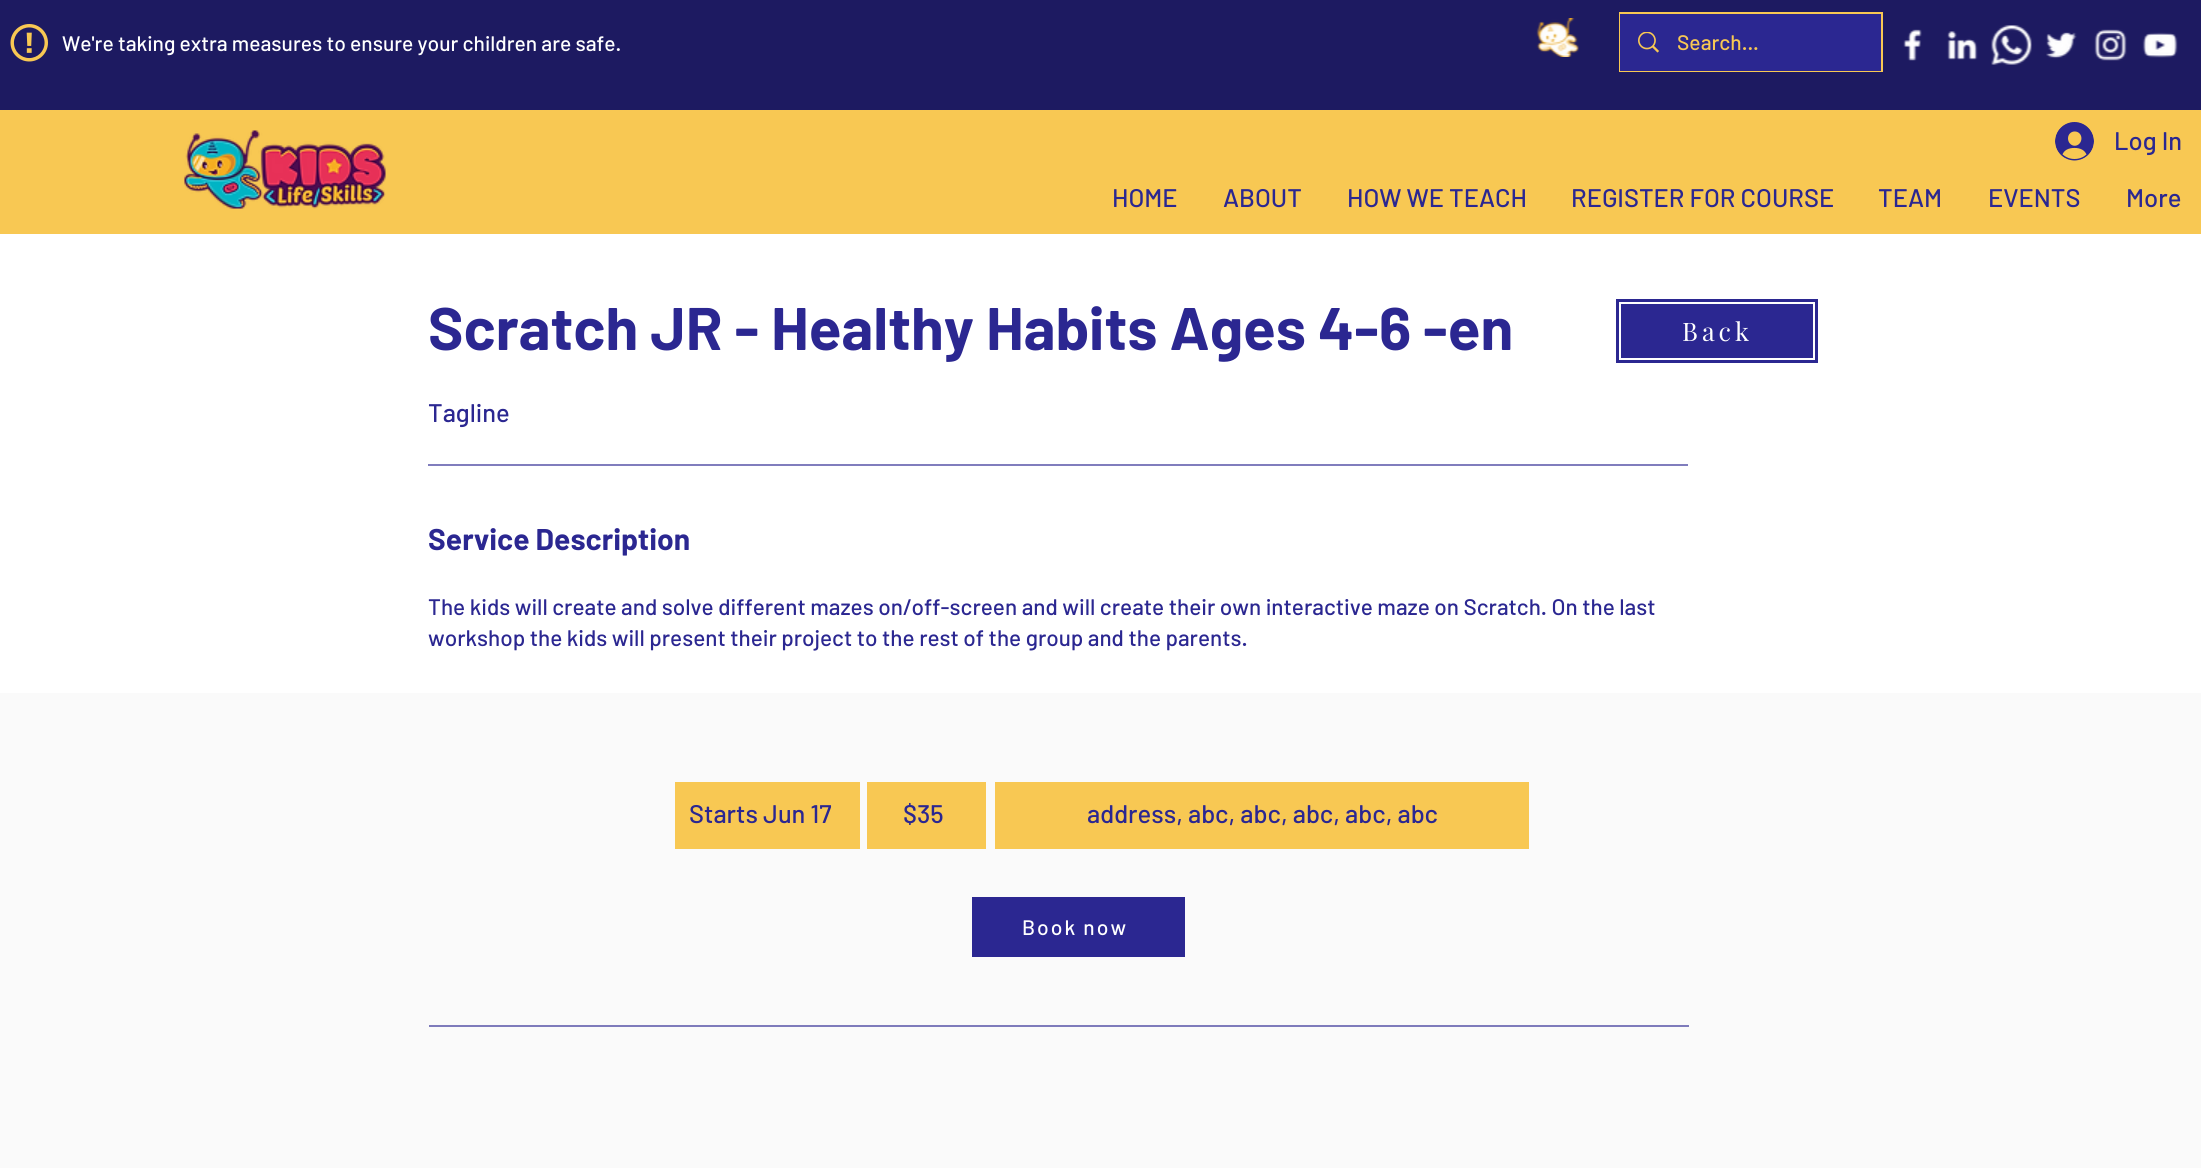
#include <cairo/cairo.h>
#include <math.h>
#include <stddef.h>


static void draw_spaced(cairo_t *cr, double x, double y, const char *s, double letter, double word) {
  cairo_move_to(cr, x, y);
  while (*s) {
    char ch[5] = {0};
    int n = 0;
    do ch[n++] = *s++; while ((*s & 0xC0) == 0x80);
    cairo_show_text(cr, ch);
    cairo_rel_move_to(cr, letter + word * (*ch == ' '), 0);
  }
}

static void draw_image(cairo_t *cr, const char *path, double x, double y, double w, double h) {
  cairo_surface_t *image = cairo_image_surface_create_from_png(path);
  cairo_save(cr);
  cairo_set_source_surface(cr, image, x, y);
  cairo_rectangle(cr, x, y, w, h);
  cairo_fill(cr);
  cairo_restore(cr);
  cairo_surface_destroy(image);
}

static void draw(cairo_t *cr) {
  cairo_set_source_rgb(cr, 1, 1, 1);
  cairo_paint(cr);
  cairo_set_source_rgb(cr, 29 / 255.0, 26 / 255.0, 97 / 255.0);
  cairo_rectangle(cr, 0, 0, 2201, 110);
  cairo_fill(cr);
  draw_image(cr, "images/1.png", 10, 24, 38, 38);
  draw_image(cr, "images/2.png", 1536, 18, 43, 39);
  cairo_rectangle(cr, 1620, 13, 262, 58);
  cairo_set_source_rgb(cr, 248 / 255.0, 200 / 255.0, 83 / 255.0);
  cairo_stroke(cr);
  cairo_set_source_rgb(cr, 43 / 255.0, 39 / 255.0, 145 / 255.0);
  cairo_rectangle(cr, 1620, 14, 261, 57);
  cairo_fill(cr);
  draw_image(cr, "images/3.png", 1638, 32, 21, 21);
  draw_image(cr, "images/4.png", 1903, 29, 19, 32);
  draw_image(cr, "images/5.png", 1947, 31, 31, 29);
  draw_image(cr, "images/6.png", 1991, 25, 41, 40);
  draw_image(cr, "images/7.png", 2046, 32, 31, 27);
  draw_image(cr, "images/8.png", 2094, 29, 33, 32);
  draw_image(cr, "images/9.png", 2142, 32, 36, 26);
  cairo_set_source_rgb(cr, 248 / 255.0, 200 / 255.0, 83 / 255.0);
  cairo_rectangle(cr, 0, 110, 2201, 124);
  cairo_fill(cr);
  draw_image(cr, "images/10.png", 184, 130, 202, 79);
  draw_image(cr, "images/11.png", 2055, 122, 39, 39);
  cairo_set_source_rgb(cr, 43 / 255.0, 39 / 255.0, 145 / 255.0);
  cairo_rectangle(cr, 1616, 299, 202, 64);
  cairo_fill(cr);
  cairo_rectangle(cr, 1620, 303, 194, 56);
  cairo_set_source_rgb(cr, 1, 1, 1);
  cairo_stroke(cr);
  cairo_set_source_rgb(cr, 128 / 255.0, 125 / 255.0, 189 / 255.0);
  cairo_rectangle(cr, 428, 464, 1260, 2);
  cairo_fill(cr);
  cairo_set_source_rgb(cr, 250 / 255.0, 250 / 255.0, 250 / 255.0);
  cairo_rectangle(cr, 0, 693, 2201, 475);
  cairo_fill(cr);
  cairo_set_source_rgb(cr, 248 / 255.0, 200 / 255.0, 83 / 255.0);
  cairo_rectangle(cr, 675, 782, 185, 67);
  cairo_fill(cr);
  cairo_rectangle(cr, 867, 782, 119, 67);
  cairo_fill(cr);
  cairo_rectangle(cr, 995, 782, 534, 67);
  cairo_fill(cr);
  cairo_set_source_rgb(cr, 43 / 255.0, 39 / 255.0, 145 / 255.0);
  cairo_rectangle(cr, 972, 897, 213, 60);
  cairo_fill(cr);
  cairo_set_source_rgb(cr, 126 / 255.0, 123 / 255.0, 187 / 255.0);
  cairo_rectangle(cr, 429, 1025, 1260, 2);
  cairo_fill(cr);
  cairo_select_font_face(cr, "Barlow Medium", CAIRO_FONT_SLANT_NORMAL, CAIRO_FONT_WEIGHT_NORMAL);
  cairo_set_font_size(cr, 21);
  cairo_set_source_rgb(cr, 1, 1, 1);
  cairo_move_to(cr, 62, 51);
  cairo_show_text(cr, "We're taking extra measures to ensure your children are safe.");
  cairo_set_source_rgb(cr, 248 / 255.0, 200 / 255.0, 83 / 255.0);
  cairo_move_to(cr, 1677, 50);
  cairo_show_text(cr, "Search...");
  cairo_set_font_size(cr, 25.5);
  cairo_set_source_rgb(cr, 43 / 255.0, 39 / 255.0, 145 / 255.0);
  cairo_move_to(cr, 2114, 150);
  cairo_show_text(cr, "Log In");
  cairo_move_to(cr, 1112, 207);
  cairo_show_text(cr, "HOME");
  cairo_move_to(cr, 1223, 207);
  cairo_show_text(cr, "ABOUT");
  cairo_move_to(cr, 1347, 207);
  cairo_show_text(cr, "HOW WE TEACH");
  cairo_move_to(cr, 1571, 207);
  cairo_show_text(cr, "REGISTER FOR COURSE");
  cairo_move_to(cr, 1878, 207);
  cairo_show_text(cr, "TEAM");
  cairo_move_to(cr, 1988, 207);
  cairo_show_text(cr, "EVENTS");
  cairo_move_to(cr, 2126, 207);
  cairo_show_text(cr, "More");
  cairo_select_font_face(cr, "Barlow", CAIRO_FONT_SLANT_NORMAL, CAIRO_FONT_WEIGHT_BOLD);
  cairo_set_font_size(cr, 60);
  cairo_move_to(cr, 428, 350);
  cairo_show_text(cr, "Scratch JR - Healthy Habits Ages 4-6 -en");
  cairo_select_font_face(cr, "Playfair Display", CAIRO_FONT_SLANT_NORMAL, CAIRO_FONT_WEIGHT_NORMAL);
  cairo_set_font_size(cr, 25.5);
  cairo_set_source_rgb(cr, 1, 1, 1);
  draw_spaced(cr, 1682, 341, "Back", 4, 0);
  cairo_select_font_face(cr, "Barlow Medium", CAIRO_FONT_SLANT_NORMAL, CAIRO_FONT_WEIGHT_NORMAL);
  cairo_set_source_rgb(cr, 43 / 255.0, 39 / 255.0, 145 / 255.0);
  cairo_move_to(cr, 428, 422);
  cairo_show_text(cr, "Tagline");
  cairo_select_font_face(cr, "Barlow", CAIRO_FONT_SLANT_NORMAL, CAIRO_FONT_WEIGHT_BOLD);
  cairo_set_font_size(cr, 30);
  cairo_move_to(cr, 428, 550);
  cairo_show_text(cr, "Service Description");
  cairo_select_font_face(cr, "Barlow Medium", CAIRO_FONT_SLANT_NORMAL, CAIRO_FONT_WEIGHT_NORMAL);
  cairo_set_font_size(cr, 22.5);
  cairo_move_to(cr, 428, 615);
  cairo_show_text(cr, "The kids will create and solve different mazes on/off-screen and will create their own interactive maze on Scratch. On the last");
  cairo_move_to(cr, 428, 646);
  cairo_show_text(cr, "workshop the kids will present their project to the rest of the group and the parents.");
  cairo_set_font_size(cr, 25.5);
  cairo_move_to(cr, 689, 823);
  cairo_show_text(cr, "Starts Jun 17");
  cairo_move_to(cr, 903, 823);
  cairo_show_text(cr, "$35");
  cairo_move_to(cr, 1087, 823);
  cairo_show_text(cr, "address, abc, abc, abc, abc, abc");
  cairo_set_font_size(cr, 21);
  cairo_set_source_rgb(cr, 1, 1, 1);
  draw_spaced(cr, 1022, 935, "Book now", 2, 0);
}

int main(void) {
  cairo_surface_t *surface = cairo_image_surface_create(CAIRO_FORMAT_RGB24, 2201, 1168);
  cairo_t *cr = cairo_create(surface);
  cairo_font_options_t *options = cairo_font_options_create();
  cairo_font_options_set_hint_metrics(options, CAIRO_HINT_METRICS_OFF);
  cairo_font_options_set_hint_style(options, CAIRO_HINT_STYLE_NONE);
  cairo_set_font_options(cr, options);
  cairo_set_miter_limit(cr, 4);
  draw(cr);
  cairo_surface_write_to_png(surface, "out.png");
  cairo_font_options_destroy(options);
  cairo_destroy(cr);
  cairo_surface_destroy(surface);
  return 0;
}
